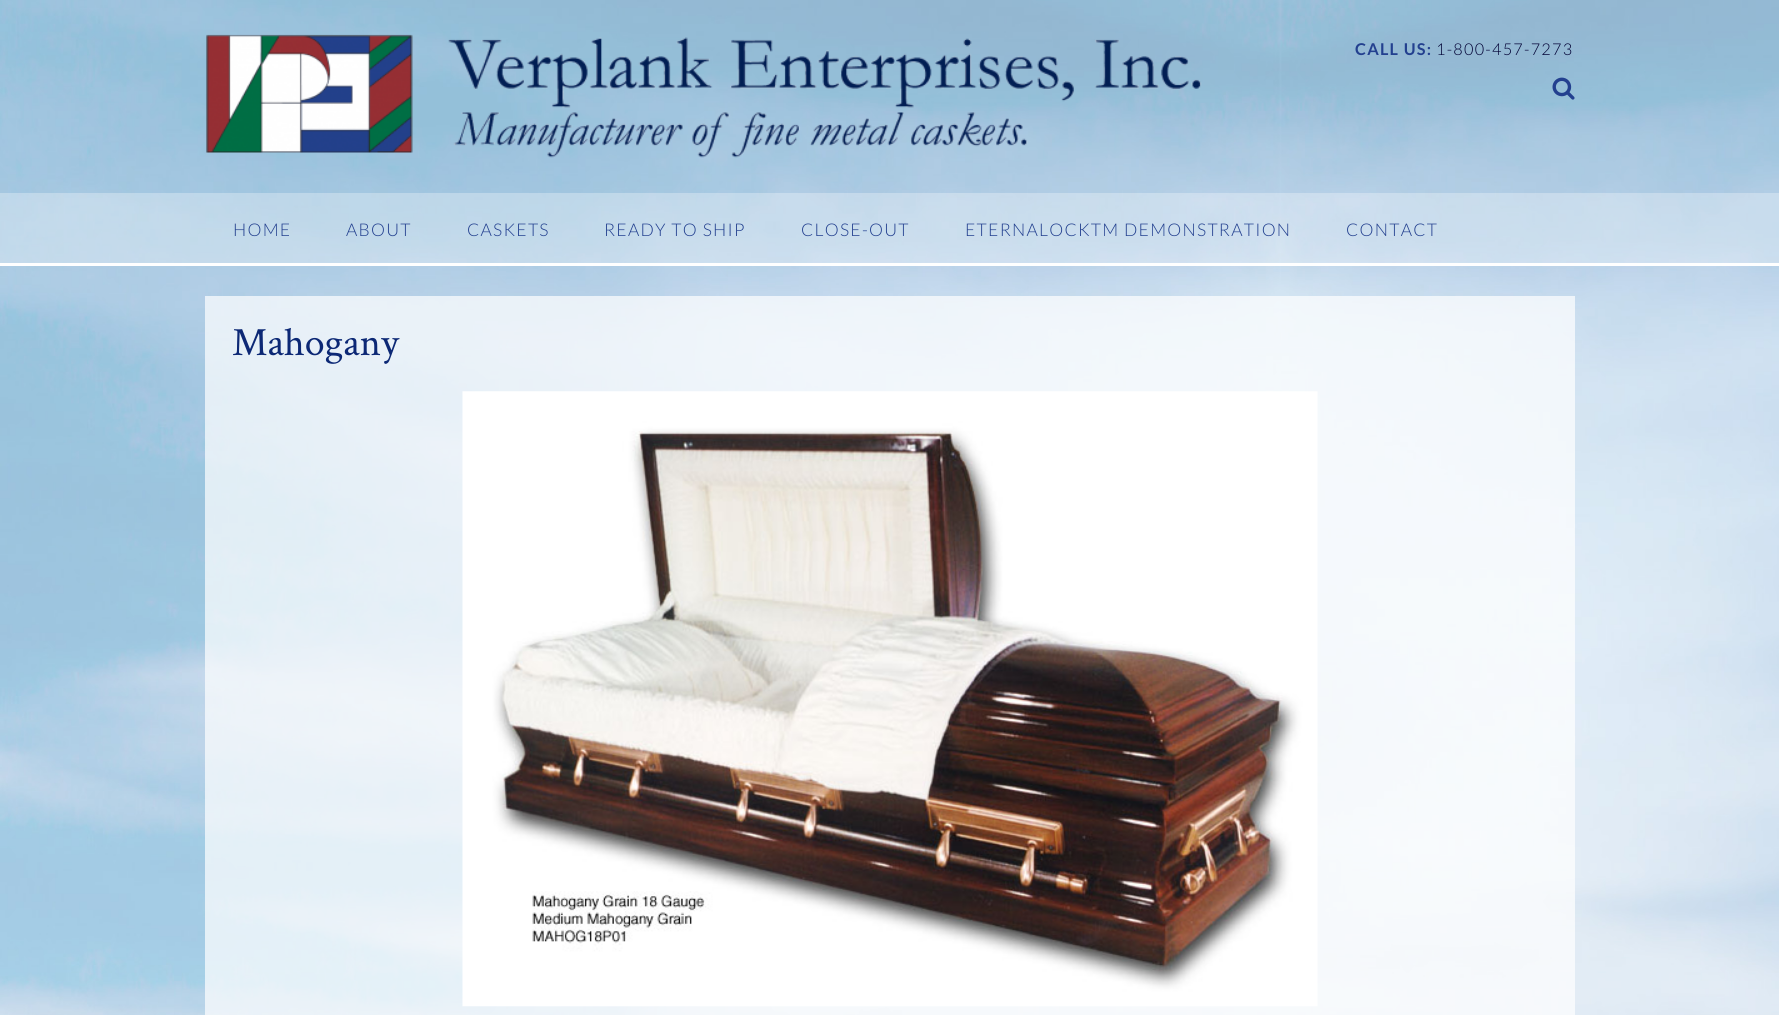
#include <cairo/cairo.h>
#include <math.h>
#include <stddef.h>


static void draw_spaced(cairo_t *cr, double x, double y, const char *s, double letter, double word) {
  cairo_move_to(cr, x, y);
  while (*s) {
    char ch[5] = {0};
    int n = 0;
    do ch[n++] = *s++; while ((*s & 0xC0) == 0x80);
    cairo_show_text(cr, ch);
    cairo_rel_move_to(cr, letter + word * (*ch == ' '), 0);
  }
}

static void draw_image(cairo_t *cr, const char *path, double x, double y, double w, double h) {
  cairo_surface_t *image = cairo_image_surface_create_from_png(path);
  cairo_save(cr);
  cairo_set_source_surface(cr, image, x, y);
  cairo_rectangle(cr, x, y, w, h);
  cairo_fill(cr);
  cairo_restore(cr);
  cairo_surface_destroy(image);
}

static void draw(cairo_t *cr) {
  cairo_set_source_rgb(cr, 1, 1, 1);
  cairo_paint(cr);
  draw_image(cr, "images/1.png", 0, 0, 1779, 1015);
  draw_image(cr, "images/2.png", 206, 34, 996, 124);
  draw_image(cr, "images/3.png", 1552, 77, 23, 23);
  cairo_set_source_rgba(cr, 1, 1, 1, 0.3);
  cairo_rectangle(cr, 0, 193, 1779, 70);
  cairo_fill(cr);
  cairo_set_source_rgb(cr, 1, 1, 1);
  cairo_rectangle(cr, 0, 263, 1779, 3);
  cairo_fill(cr);
  cairo_set_source_rgba(cr, 1, 1, 1, 0.7);
  cairo_rectangle(cr, 205, 296, 1370, 719);
  cairo_fill(cr);
  draw_image(cr, "images/4.png", 462, 391, 856, 616);
  cairo_select_font_face(cr, "Lato", CAIRO_FONT_SLANT_NORMAL, CAIRO_FONT_WEIGHT_BOLD);
  cairo_set_font_size(cr, 16.25);
  cairo_set_source_rgb(cr, 35 / 255.0, 64 / 255.0, 143 / 255.0);
  draw_spaced(cr, 1355, 55, "CALL US:", 1.25, 0);
  cairo_select_font_face(cr, "Lato Light", CAIRO_FONT_SLANT_NORMAL, CAIRO_FONT_WEIGHT_NORMAL);
  cairo_set_source_rgb(cr, 0, 0, 51 / 255.0);
  draw_spaced(cr, 1436, 55, "1-800-457-7273", 1.25, 0);
  cairo_set_font_size(cr, 17.5);
  cairo_set_source_rgb(cr, 35 / 255.0, 64 / 255.0, 143 / 255.0);
  draw_spaced(cr, 233, 236, "HOME", 1.25, 0);
  draw_spaced(cr, 346, 236, "ABOUT", 1.25, 0);
  draw_spaced(cr, 467, 236, "CASKETS", 1.25, 0);
  draw_spaced(cr, 604, 236, "READY TO SHIP", 1.25, 0);
  draw_spaced(cr, 801, 236, "CLOSE-OUT", 1.25, 0);
  draw_spaced(cr, 965, 236, "ETERNALOCKTM DEMONSTRATION", 1.25, 0);
  draw_spaced(cr, 1346, 236, "CONTACT", 1.25, 0);
  cairo_select_font_face(cr, "Crimson Text", CAIRO_FONT_SLANT_NORMAL, CAIRO_FONT_WEIGHT_NORMAL);
  cairo_set_font_size(cr, 40);
  cairo_set_source_rgb(cr, 12 / 255.0, 40 / 255.0, 117 / 255.0);
  cairo_move_to(cr, 232, 355);
  cairo_show_text(cr, "Mahogany");
}

int main(void) {
  cairo_surface_t *surface = cairo_image_surface_create(CAIRO_FORMAT_RGB24, 1779, 1015);
  cairo_t *cr = cairo_create(surface);
  cairo_font_options_t *options = cairo_font_options_create();
  cairo_font_options_set_hint_metrics(options, CAIRO_HINT_METRICS_OFF);
  cairo_font_options_set_hint_style(options, CAIRO_HINT_STYLE_NONE);
  cairo_set_font_options(cr, options);
  cairo_set_miter_limit(cr, 4);
  draw(cr);
  cairo_surface_write_to_png(surface, "out.png");
  cairo_font_options_destroy(options);
  cairo_destroy(cr);
  cairo_surface_destroy(surface);
  return 0;
}
